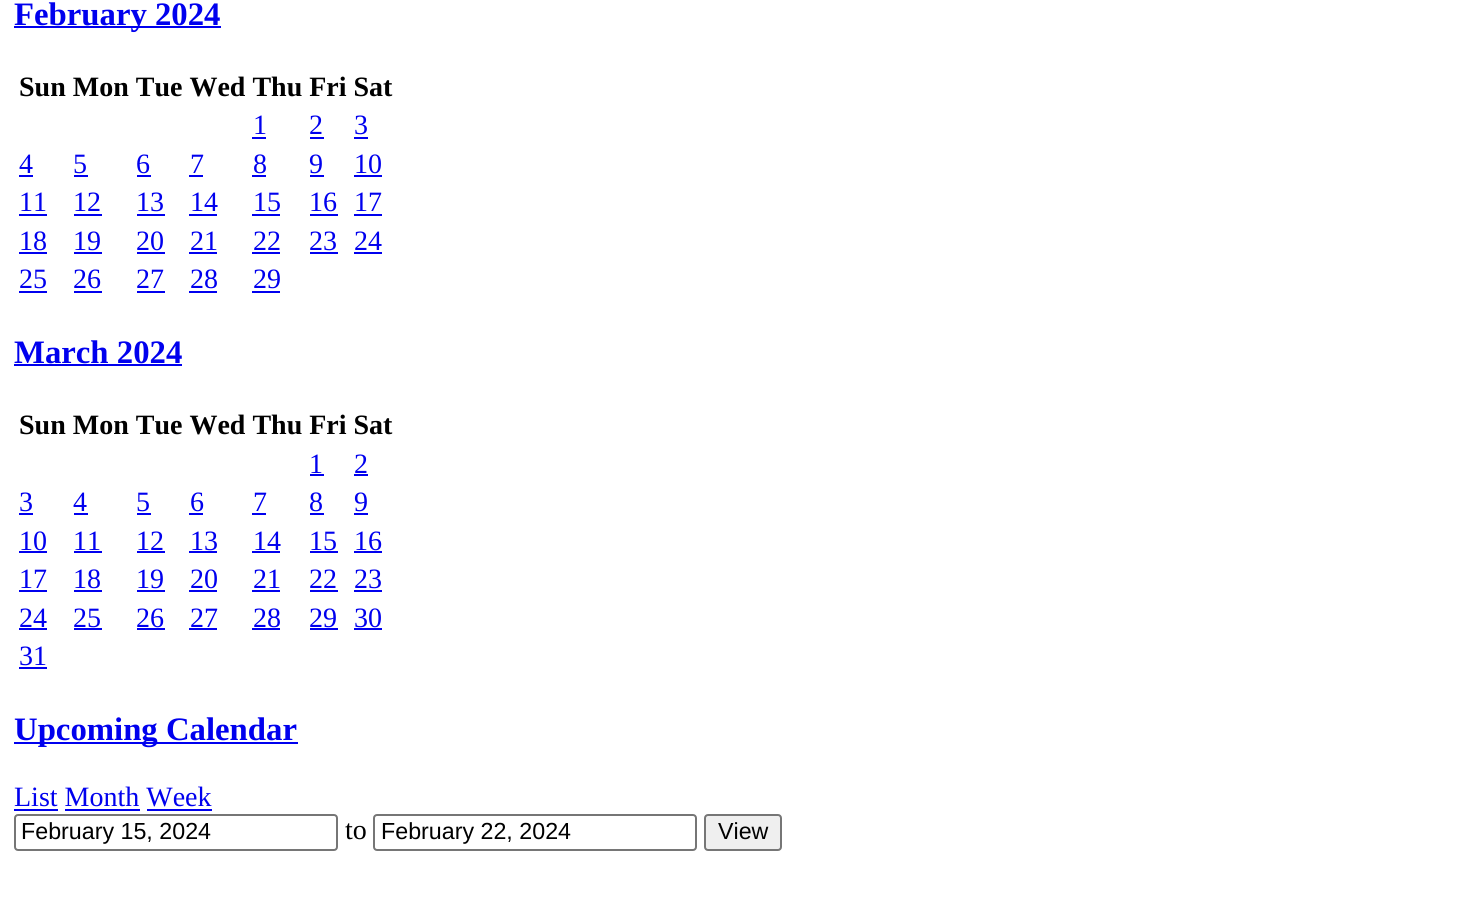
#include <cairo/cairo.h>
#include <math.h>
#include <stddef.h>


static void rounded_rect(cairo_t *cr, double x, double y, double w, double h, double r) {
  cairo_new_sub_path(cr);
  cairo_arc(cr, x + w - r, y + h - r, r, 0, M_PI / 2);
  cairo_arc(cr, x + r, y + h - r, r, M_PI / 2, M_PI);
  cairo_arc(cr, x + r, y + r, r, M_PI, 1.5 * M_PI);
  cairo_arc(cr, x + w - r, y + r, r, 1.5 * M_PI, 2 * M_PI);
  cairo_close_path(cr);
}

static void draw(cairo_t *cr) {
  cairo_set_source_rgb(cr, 1, 1, 1);
  cairo_paint(cr);
  cairo_set_source_rgb(cr, 0, 0, 238 / 255.0);
  cairo_rectangle(cr, 14, 26, 207, 2);
  cairo_fill(cr);
  cairo_rectangle(cr, 252, 137, 14, 2);
  cairo_fill(cr);
  cairo_rectangle(cr, 310, 137, 14, 2);
  cairo_fill(cr);
  cairo_rectangle(cr, 354, 137, 14, 2);
  cairo_fill(cr);
  cairo_rectangle(cr, 19, 175, 14, 2);
  cairo_fill(cr);
  cairo_rectangle(cr, 74, 175, 14, 2);
  cairo_fill(cr);
  cairo_rectangle(cr, 137, 175, 14, 2);
  cairo_fill(cr);
  cairo_rectangle(cr, 189, 175, 14, 2);
  cairo_fill(cr);
  cairo_rectangle(cr, 252, 175, 14, 2);
  cairo_fill(cr);
  cairo_rectangle(cr, 310, 175, 14, 2);
  cairo_fill(cr);
  cairo_rectangle(cr, 354, 175, 28, 2);
  cairo_fill(cr);
  cairo_rectangle(cr, 19, 214, 28, 2);
  cairo_fill(cr);
  cairo_rectangle(cr, 74, 214, 28, 2);
  cairo_fill(cr);
  cairo_rectangle(cr, 137, 214, 28, 2);
  cairo_fill(cr);
  cairo_rectangle(cr, 189, 214, 28, 2);
  cairo_fill(cr);
  cairo_rectangle(cr, 252, 214, 28, 2);
  cairo_fill(cr);
  cairo_rectangle(cr, 310, 214, 28, 2);
  cairo_fill(cr);
  cairo_rectangle(cr, 354, 214, 28, 2);
  cairo_fill(cr);
  cairo_rectangle(cr, 19, 252, 28, 2);
  cairo_fill(cr);
  cairo_rectangle(cr, 74, 252, 28, 2);
  cairo_fill(cr);
  cairo_rectangle(cr, 137, 252, 28, 2);
  cairo_fill(cr);
  cairo_rectangle(cr, 189, 252, 28, 2);
  cairo_fill(cr);
  cairo_rectangle(cr, 252, 252, 28, 2);
  cairo_fill(cr);
  cairo_rectangle(cr, 310, 252, 28, 2);
  cairo_fill(cr);
  cairo_rectangle(cr, 354, 252, 28, 2);
  cairo_fill(cr);
  cairo_rectangle(cr, 19, 291, 28, 2);
  cairo_fill(cr);
  cairo_rectangle(cr, 74, 291, 28, 2);
  cairo_fill(cr);
  cairo_rectangle(cr, 137, 291, 28, 2);
  cairo_fill(cr);
  cairo_rectangle(cr, 189, 291, 28, 2);
  cairo_fill(cr);
  cairo_rectangle(cr, 252, 291, 28, 2);
  cairo_fill(cr);
  cairo_rectangle(cr, 14, 364, 168, 2);
  cairo_fill(cr);
  cairo_rectangle(cr, 310, 474, 14, 2);
  cairo_fill(cr);
  cairo_rectangle(cr, 354, 474, 14, 2);
  cairo_fill(cr);
  cairo_rectangle(cr, 19, 513, 14, 2);
  cairo_fill(cr);
  cairo_rectangle(cr, 74, 513, 14, 2);
  cairo_fill(cr);
  cairo_rectangle(cr, 137, 513, 14, 2);
  cairo_fill(cr);
  cairo_rectangle(cr, 189, 513, 14, 2);
  cairo_fill(cr);
  cairo_rectangle(cr, 252, 513, 14, 2);
  cairo_fill(cr);
  cairo_rectangle(cr, 310, 513, 14, 2);
  cairo_fill(cr);
  cairo_rectangle(cr, 354, 513, 14, 2);
  cairo_fill(cr);
  cairo_rectangle(cr, 19, 551, 28, 2);
  cairo_fill(cr);
  cairo_rectangle(cr, 74, 551, 28, 2);
  cairo_fill(cr);
  cairo_rectangle(cr, 137, 551, 28, 2);
  cairo_fill(cr);
  cairo_rectangle(cr, 189, 551, 28, 2);
  cairo_fill(cr);
  cairo_rectangle(cr, 252, 551, 28, 2);
  cairo_fill(cr);
  cairo_rectangle(cr, 310, 551, 28, 2);
  cairo_fill(cr);
  cairo_rectangle(cr, 354, 551, 28, 2);
  cairo_fill(cr);
  cairo_rectangle(cr, 19, 590, 28, 2);
  cairo_fill(cr);
  cairo_rectangle(cr, 74, 590, 28, 2);
  cairo_fill(cr);
  cairo_rectangle(cr, 137, 590, 28, 2);
  cairo_fill(cr);
  cairo_rectangle(cr, 189, 590, 28, 2);
  cairo_fill(cr);
  cairo_rectangle(cr, 252, 590, 28, 2);
  cairo_fill(cr);
  cairo_rectangle(cr, 310, 590, 28, 2);
  cairo_fill(cr);
  cairo_rectangle(cr, 354, 590, 28, 2);
  cairo_fill(cr);
  cairo_rectangle(cr, 19, 628, 28, 2);
  cairo_fill(cr);
  cairo_rectangle(cr, 74, 628, 28, 2);
  cairo_fill(cr);
  cairo_rectangle(cr, 137, 628, 28, 2);
  cairo_fill(cr);
  cairo_rectangle(cr, 189, 628, 28, 2);
  cairo_fill(cr);
  cairo_rectangle(cr, 252, 628, 28, 2);
  cairo_fill(cr);
  cairo_rectangle(cr, 310, 628, 28, 2);
  cairo_fill(cr);
  cairo_rectangle(cr, 354, 628, 28, 2);
  cairo_fill(cr);
  cairo_rectangle(cr, 19, 667, 28, 2);
  cairo_fill(cr);
  cairo_rectangle(cr, 14, 742, 284, 2);
  cairo_fill(cr);
  cairo_rectangle(cr, 14, 809, 44, 2);
  cairo_fill(cr);
  cairo_rectangle(cr, 65, 809, 75, 2);
  cairo_fill(cr);
  cairo_rectangle(cr, 147, 809, 65, 2);
  cairo_fill(cr);
  rounded_rect(cr, 15, 815, 322, 35, 3);
  cairo_set_source_rgb(cr, 118 / 255.0, 118 / 255.0, 118 / 255.0);
  cairo_stroke(cr);
  rounded_rect(cr, 374, 815, 322, 35, 3);
  cairo_stroke(cr);
  cairo_set_source_rgb(cr, 239 / 255.0, 239 / 255.0, 239 / 255.0);
  rounded_rect(cr, 705, 815, 76, 35, 3);
  cairo_fill_preserve(cr);
  cairo_set_source_rgb(cr, 118 / 255.0, 118 / 255.0, 118 / 255.0);
  cairo_stroke(cr);
  cairo_select_font_face(cr, "Liberation Serif", CAIRO_FONT_SLANT_NORMAL, CAIRO_FONT_WEIGHT_BOLD);
  cairo_set_font_size(cr, 32.75);
  cairo_set_source_rgb(cr, 0, 0, 238 / 255.0);
  cairo_move_to(cr, 14, 25);
  cairo_show_text(cr, "February 2024");
  cairo_set_font_size(cr, 28);
  cairo_set_source_rgb(cr, 0, 0, 0);
  cairo_move_to(cr, 19, 96);
  cairo_show_text(cr, "Sun Mon Tue Wed Thu Fri Sat");
  cairo_select_font_face(cr, "Liberation Serif", CAIRO_FONT_SLANT_NORMAL, CAIRO_FONT_WEIGHT_NORMAL);
  cairo_set_source_rgb(cr, 0, 0, 238 / 255.0);
  cairo_move_to(cr, 253, 134);
  cairo_show_text(cr, "1");
  cairo_move_to(cr, 309, 134);
  cairo_show_text(cr, "2");
  cairo_move_to(cr, 354, 134);
  cairo_show_text(cr, "3");
  cairo_move_to(cr, 19, 173);
  cairo_show_text(cr, "4");
  cairo_move_to(cr, 73, 173);
  cairo_show_text(cr, "5");
  cairo_move_to(cr, 136, 173);
  cairo_show_text(cr, "6");
  cairo_move_to(cr, 190, 173);
  cairo_show_text(cr, "7");
  cairo_move_to(cr, 253, 173);
  cairo_show_text(cr, "8");
  cairo_move_to(cr, 309, 173);
  cairo_show_text(cr, "9");
  cairo_move_to(cr, 354, 173);
  cairo_show_text(cr, "10");
  cairo_move_to(cr, 19, 211);
  cairo_show_text(cr, "11");
  cairo_move_to(cr, 73, 211);
  cairo_show_text(cr, "12");
  cairo_move_to(cr, 136, 211);
  cairo_show_text(cr, "13");
  cairo_move_to(cr, 190, 211);
  cairo_show_text(cr, "14");
  cairo_move_to(cr, 253, 211);
  cairo_show_text(cr, "15");
  cairo_move_to(cr, 309, 211);
  cairo_show_text(cr, "16");
  cairo_move_to(cr, 354, 211);
  cairo_show_text(cr, "17");
  cairo_move_to(cr, 19, 250);
  cairo_show_text(cr, "18");
  cairo_move_to(cr, 73, 250);
  cairo_show_text(cr, "19");
  cairo_move_to(cr, 136, 250);
  cairo_show_text(cr, "20");
  cairo_move_to(cr, 190, 250);
  cairo_show_text(cr, "21");
  cairo_move_to(cr, 253, 250);
  cairo_show_text(cr, "22");
  cairo_move_to(cr, 309, 250);
  cairo_show_text(cr, "23");
  cairo_move_to(cr, 354, 250);
  cairo_show_text(cr, "24");
  cairo_move_to(cr, 19, 288);
  cairo_show_text(cr, "25");
  cairo_move_to(cr, 73, 288);
  cairo_show_text(cr, "26");
  cairo_move_to(cr, 136, 288);
  cairo_show_text(cr, "27");
  cairo_move_to(cr, 190, 288);
  cairo_show_text(cr, "28");
  cairo_move_to(cr, 253, 288);
  cairo_show_text(cr, "29");
  cairo_select_font_face(cr, "Liberation Serif", CAIRO_FONT_SLANT_NORMAL, CAIRO_FONT_WEIGHT_BOLD);
  cairo_set_font_size(cr, 32.75);
  cairo_move_to(cr, 14, 363);
  cairo_show_text(cr, "March 2024");
  cairo_set_font_size(cr, 28);
  cairo_set_source_rgb(cr, 0, 0, 0);
  cairo_move_to(cr, 19, 434);
  cairo_show_text(cr, "Sun Mon Tue Wed Thu Fri Sat");
  cairo_select_font_face(cr, "Liberation Serif", CAIRO_FONT_SLANT_NORMAL, CAIRO_FONT_WEIGHT_NORMAL);
  cairo_set_source_rgb(cr, 0, 0, 238 / 255.0);
  cairo_move_to(cr, 309, 473);
  cairo_show_text(cr, "1");
  cairo_move_to(cr, 354, 473);
  cairo_show_text(cr, "2");
  cairo_move_to(cr, 19, 511);
  cairo_show_text(cr, "3");
  cairo_move_to(cr, 73, 511);
  cairo_show_text(cr, "4");
  cairo_move_to(cr, 136, 511);
  cairo_show_text(cr, "5");
  cairo_move_to(cr, 190, 511);
  cairo_show_text(cr, "6");
  cairo_move_to(cr, 253, 511);
  cairo_show_text(cr, "7");
  cairo_move_to(cr, 309, 511);
  cairo_show_text(cr, "8");
  cairo_move_to(cr, 354, 511);
  cairo_show_text(cr, "9");
  cairo_move_to(cr, 19, 550);
  cairo_show_text(cr, "10");
  cairo_move_to(cr, 73, 550);
  cairo_show_text(cr, "11");
  cairo_move_to(cr, 136, 550);
  cairo_show_text(cr, "12");
  cairo_move_to(cr, 190, 550);
  cairo_show_text(cr, "13");
  cairo_move_to(cr, 253, 550);
  cairo_show_text(cr, "14");
  cairo_move_to(cr, 309, 550);
  cairo_show_text(cr, "15");
  cairo_move_to(cr, 354, 550);
  cairo_show_text(cr, "16");
  cairo_move_to(cr, 19, 588);
  cairo_show_text(cr, "17");
  cairo_move_to(cr, 73, 588);
  cairo_show_text(cr, "18");
  cairo_move_to(cr, 136, 588);
  cairo_show_text(cr, "19");
  cairo_move_to(cr, 190, 588);
  cairo_show_text(cr, "20");
  cairo_move_to(cr, 253, 588);
  cairo_show_text(cr, "21");
  cairo_move_to(cr, 309, 588);
  cairo_show_text(cr, "22");
  cairo_move_to(cr, 354, 588);
  cairo_show_text(cr, "23");
  cairo_move_to(cr, 19, 627);
  cairo_show_text(cr, "24");
  cairo_move_to(cr, 73, 627);
  cairo_show_text(cr, "25");
  cairo_move_to(cr, 136, 627);
  cairo_show_text(cr, "26");
  cairo_move_to(cr, 190, 627);
  cairo_show_text(cr, "27");
  cairo_move_to(cr, 253, 627);
  cairo_show_text(cr, "28");
  cairo_move_to(cr, 309, 627);
  cairo_show_text(cr, "29");
  cairo_move_to(cr, 354, 627);
  cairo_show_text(cr, "30");
  cairo_move_to(cr, 19, 665);
  cairo_show_text(cr, "31");
  cairo_select_font_face(cr, "Liberation Serif", CAIRO_FONT_SLANT_NORMAL, CAIRO_FONT_WEIGHT_BOLD);
  cairo_set_font_size(cr, 32.75);
  cairo_move_to(cr, 14, 740);
  cairo_show_text(cr, "Upcoming Calendar");
  cairo_select_font_face(cr, "Liberation Serif", CAIRO_FONT_SLANT_NORMAL, CAIRO_FONT_WEIGHT_NORMAL);
  cairo_set_font_size(cr, 28);
  cairo_move_to(cr, 14, 806);
  cairo_show_text(cr, "List Month Week");
  cairo_select_font_face(cr, "Liberation Sans", CAIRO_FONT_SLANT_NORMAL, CAIRO_FONT_WEIGHT_NORMAL);
  cairo_set_font_size(cr, 23.25);
  cairo_set_source_rgb(cr, 0, 0, 0);
  cairo_move_to(cr, 21, 839);
  cairo_show_text(cr, "February 15, 2024");
  cairo_select_font_face(cr, "Liberation Serif", CAIRO_FONT_SLANT_NORMAL, CAIRO_FONT_WEIGHT_NORMAL);
  cairo_set_font_size(cr, 28);
  cairo_move_to(cr, 345, 839);
  cairo_show_text(cr, "to");
  cairo_select_font_face(cr, "Liberation Sans", CAIRO_FONT_SLANT_NORMAL, CAIRO_FONT_WEIGHT_NORMAL);
  cairo_set_font_size(cr, 23.25);
  cairo_move_to(cr, 381, 839);
  cairo_show_text(cr, "February 22, 2024");
  cairo_move_to(cr, 718, 839);
  cairo_show_text(cr, "View");
}

int main(void) {
  cairo_surface_t *surface = cairo_image_surface_create(CAIRO_FORMAT_RGB24, 1460, 902);
  cairo_t *cr = cairo_create(surface);
  cairo_font_options_t *options = cairo_font_options_create();
  cairo_font_options_set_hint_metrics(options, CAIRO_HINT_METRICS_OFF);
  cairo_font_options_set_hint_style(options, CAIRO_HINT_STYLE_NONE);
  cairo_set_font_options(cr, options);
  cairo_set_miter_limit(cr, 4);
  draw(cr);
  cairo_surface_write_to_png(surface, "out.png");
  cairo_font_options_destroy(options);
  cairo_destroy(cr);
  cairo_surface_destroy(surface);
  return 0;
}
